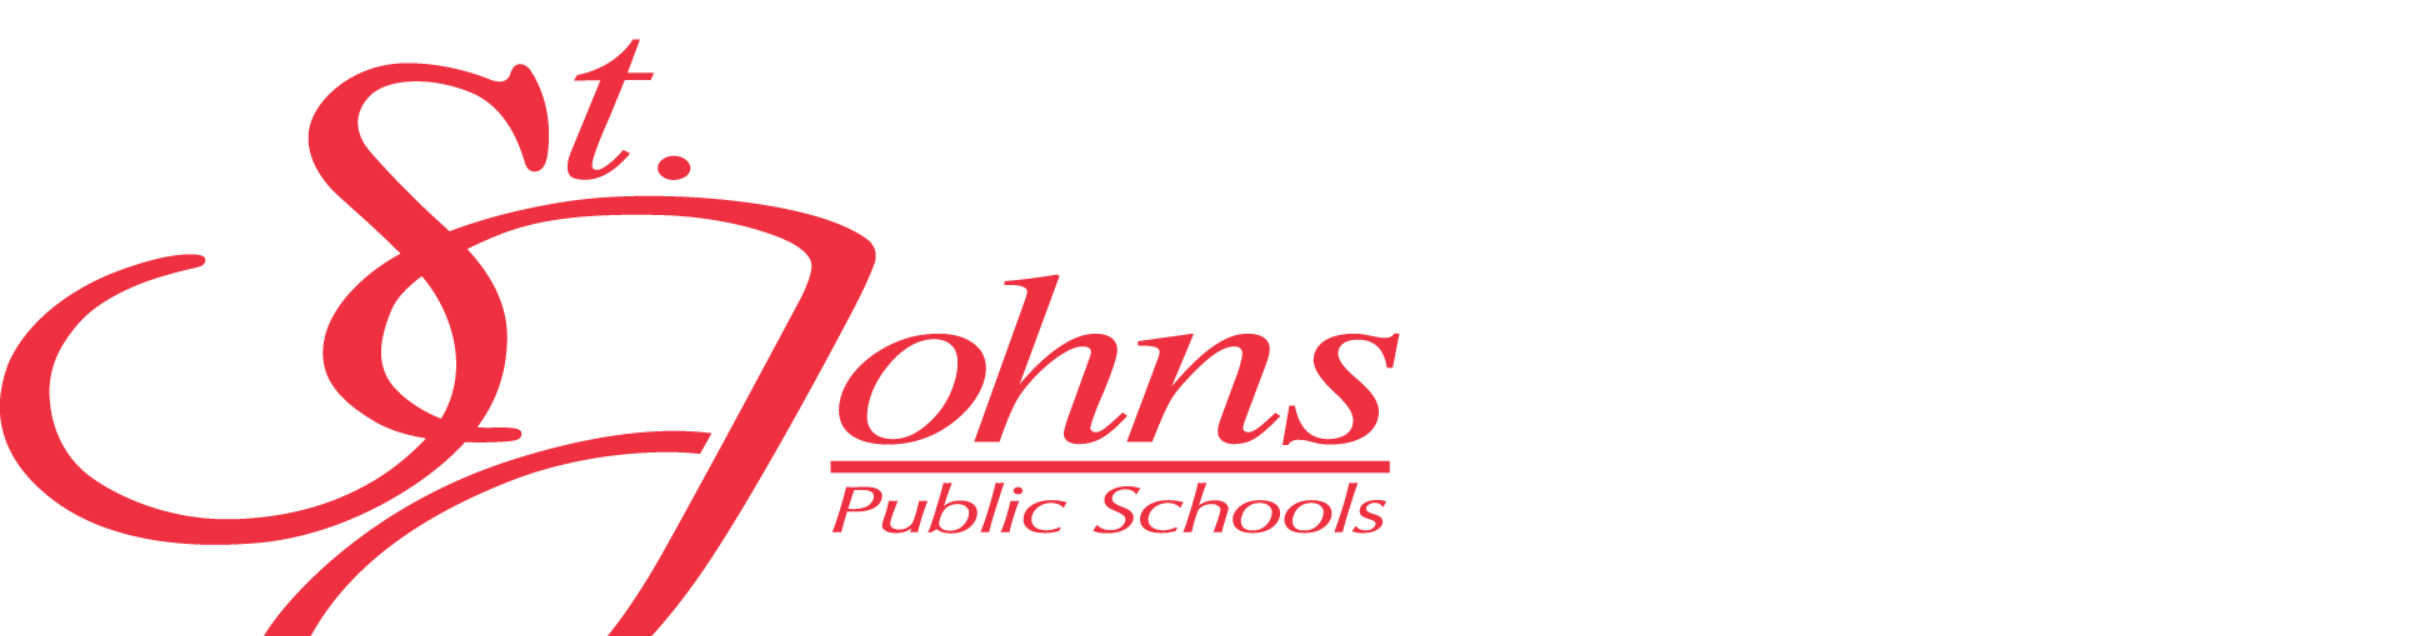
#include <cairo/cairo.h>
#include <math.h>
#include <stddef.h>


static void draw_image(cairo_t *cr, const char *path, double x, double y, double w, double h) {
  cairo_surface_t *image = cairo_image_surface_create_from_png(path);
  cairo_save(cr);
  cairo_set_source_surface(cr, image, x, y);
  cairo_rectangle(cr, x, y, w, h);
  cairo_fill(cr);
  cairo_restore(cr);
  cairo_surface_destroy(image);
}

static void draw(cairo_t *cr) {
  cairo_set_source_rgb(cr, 1, 1, 1);
  cairo_paint(cr);
  draw_image(cr, "images/1.png", 0, 38, 1400, 598);
}

int main(void) {
  cairo_surface_t *surface = cairo_image_surface_create(CAIRO_FORMAT_RGB24, 2410, 636);
  cairo_t *cr = cairo_create(surface);
  cairo_font_options_t *options = cairo_font_options_create();
  cairo_font_options_set_hint_metrics(options, CAIRO_HINT_METRICS_OFF);
  cairo_font_options_set_hint_style(options, CAIRO_HINT_STYLE_NONE);
  cairo_set_font_options(cr, options);
  cairo_set_miter_limit(cr, 4);
  draw(cr);
  cairo_surface_write_to_png(surface, "out.png");
  cairo_font_options_destroy(options);
  cairo_destroy(cr);
  cairo_surface_destroy(surface);
  return 0;
}
